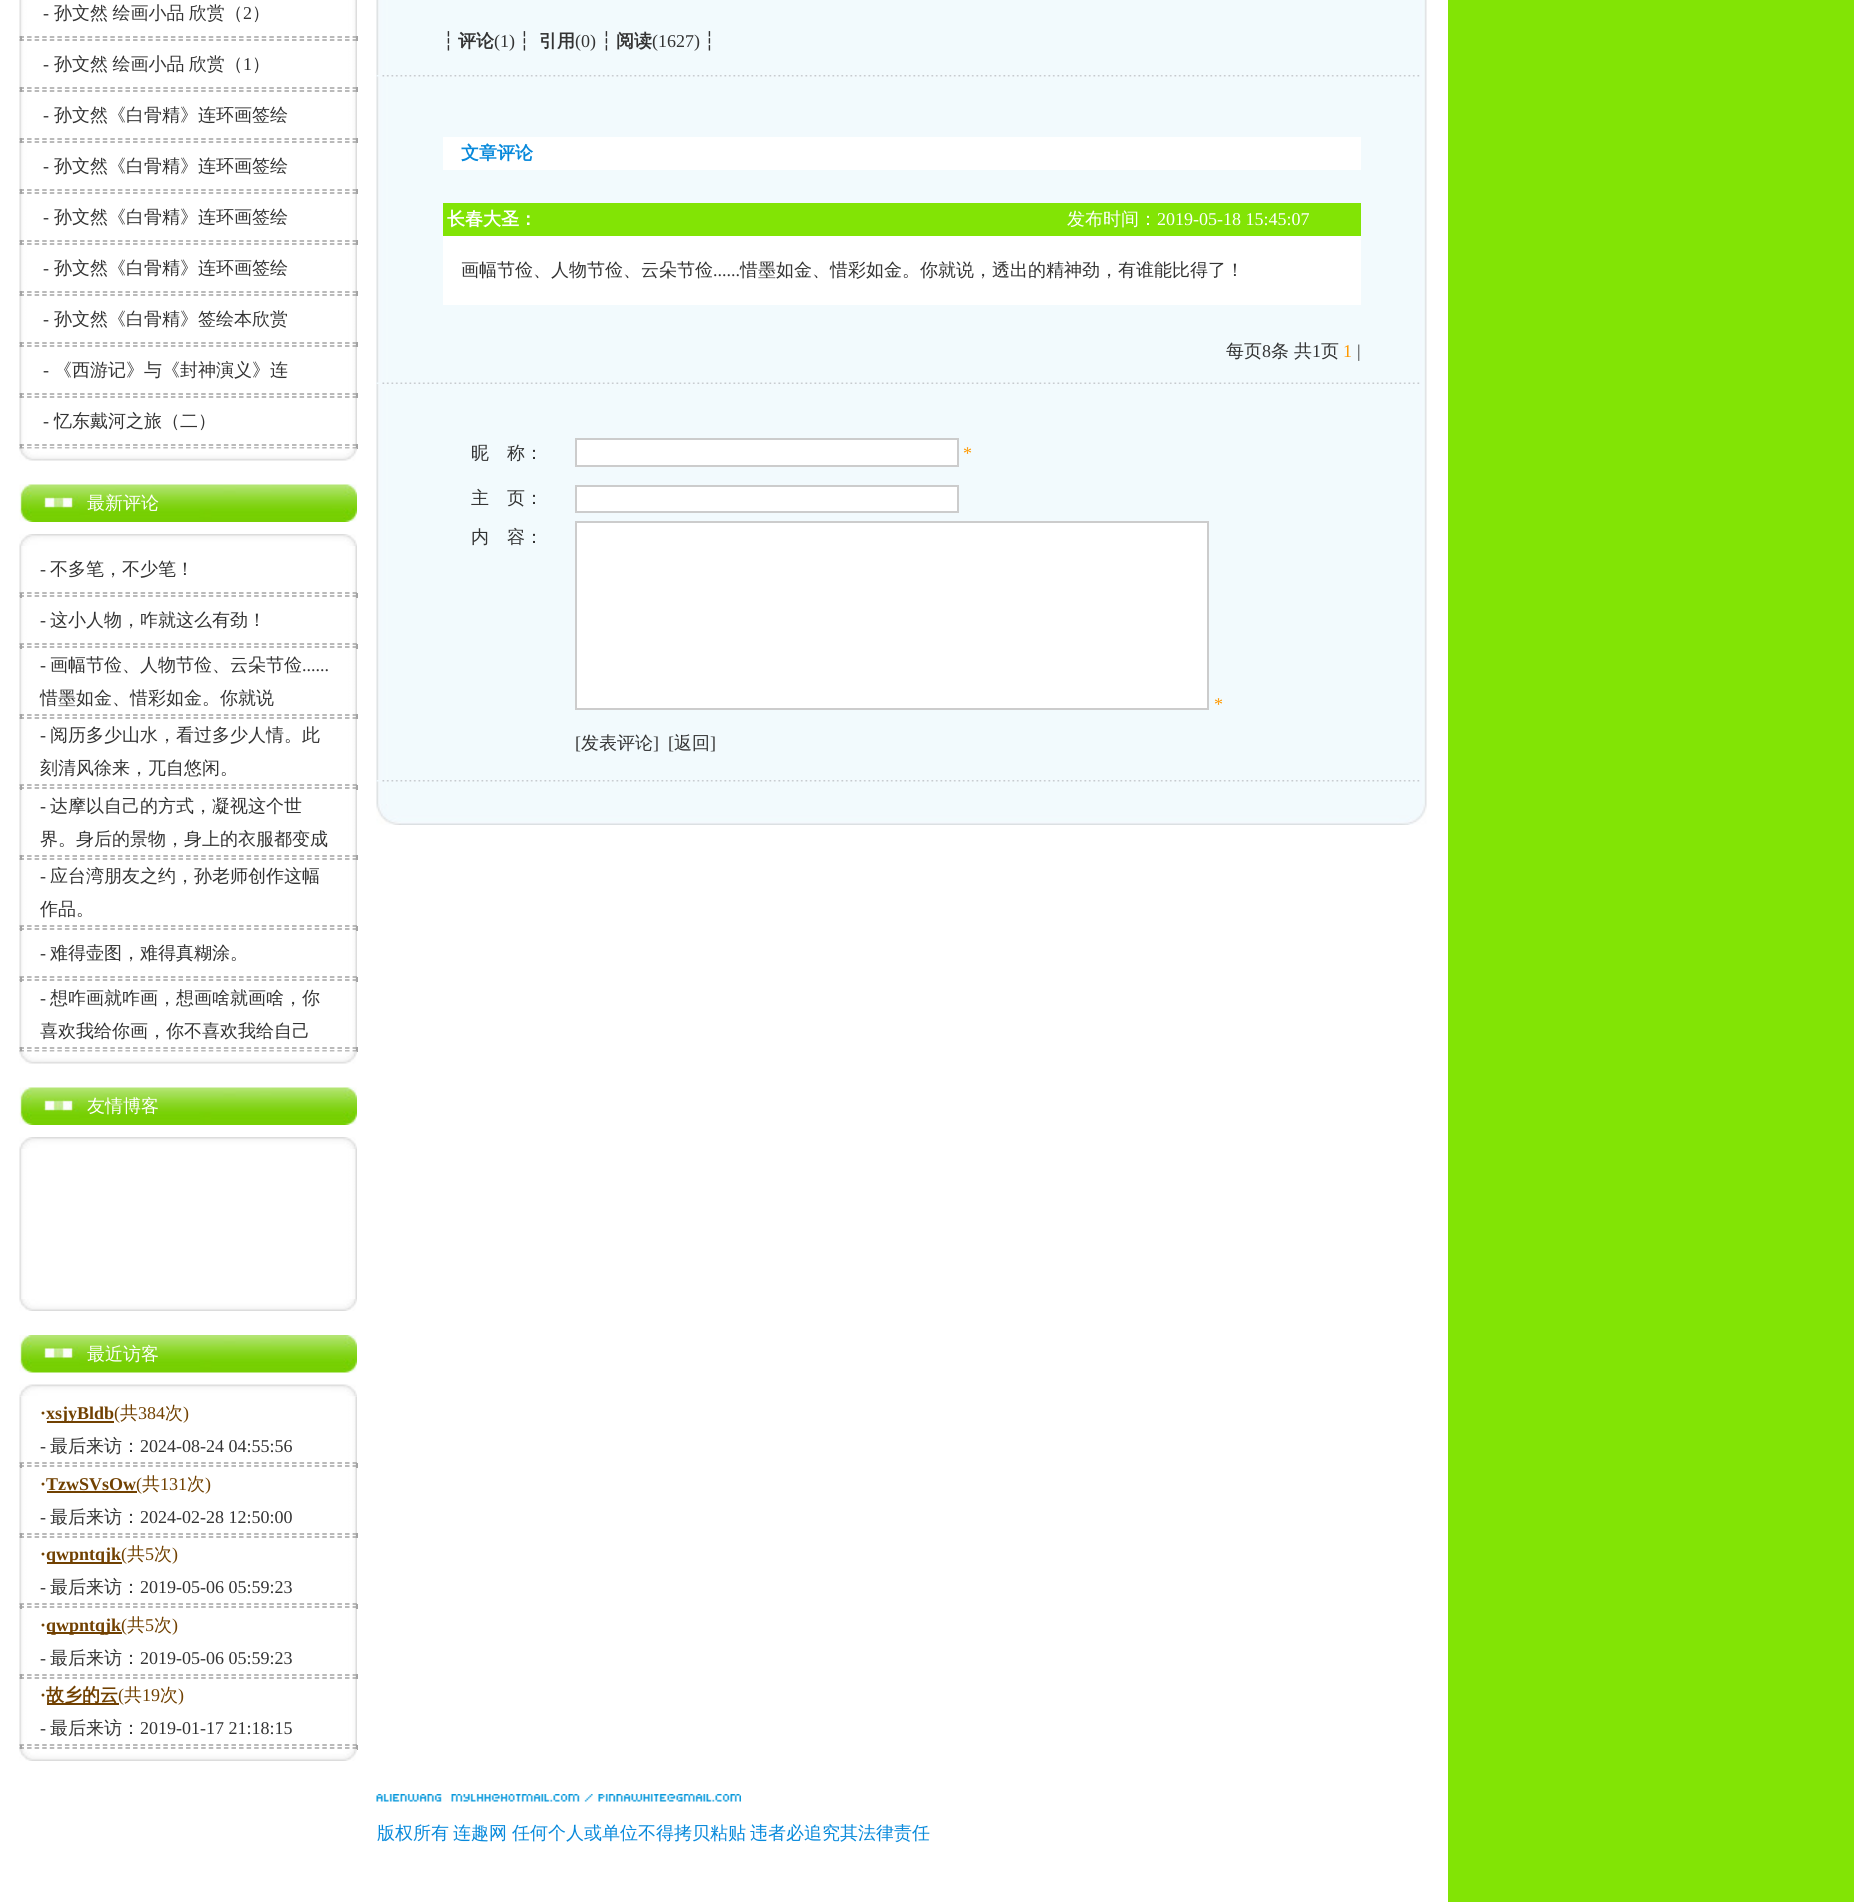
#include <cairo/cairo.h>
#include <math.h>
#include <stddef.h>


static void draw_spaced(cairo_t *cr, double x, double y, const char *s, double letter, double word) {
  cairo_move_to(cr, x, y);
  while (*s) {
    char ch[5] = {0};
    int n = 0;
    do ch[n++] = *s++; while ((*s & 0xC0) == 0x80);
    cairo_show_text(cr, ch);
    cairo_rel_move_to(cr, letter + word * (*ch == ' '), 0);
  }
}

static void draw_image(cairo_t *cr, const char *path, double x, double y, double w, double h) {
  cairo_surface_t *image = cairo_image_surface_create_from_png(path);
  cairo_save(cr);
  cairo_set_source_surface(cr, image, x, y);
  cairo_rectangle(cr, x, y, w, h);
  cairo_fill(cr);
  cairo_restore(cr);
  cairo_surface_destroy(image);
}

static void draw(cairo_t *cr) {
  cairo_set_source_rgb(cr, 130 / 255.0, 228 / 255.0, 5 / 255.0);
  cairo_paint(cr);
  cairo_set_source_rgb(cr, 1, 1, 1);
  cairo_rectangle(cr, 0, 0, 1448, 1902);
  cairo_fill(cr);
  draw_image(cr, "images/1.png", 19, 0, 338, 449);
  cairo_new_path(cr);
  cairo_move_to(cr, 19.5, 37);
  cairo_line_to(cr, 357, 37);
  cairo_set_source_rgb(cr, 163 / 255.0, 163 / 255.0, 163 / 255.0);
  cairo_set_line_width(cr, 1.5);
  cairo_set_dash(cr, (double[]){4.5, 3.07}, 2, 0);
  cairo_stroke(cr);
  cairo_rectangle(cr, 356, 36, 2, 5);
  cairo_fill(cr);
  cairo_new_path(cr);
  cairo_move_to(cr, 19.5, 40);
  cairo_line_to(cr, 357, 40);
  cairo_stroke(cr);
  cairo_rectangle(cr, 20, 36, 2, 5);
  cairo_fill(cr);
  cairo_new_path(cr);
  cairo_move_to(cr, 19.5, 88);
  cairo_line_to(cr, 357, 88);
  cairo_stroke(cr);
  cairo_rectangle(cr, 356, 87, 2, 5);
  cairo_fill(cr);
  cairo_new_path(cr);
  cairo_move_to(cr, 19.5, 91);
  cairo_line_to(cr, 357, 91);
  cairo_stroke(cr);
  cairo_rectangle(cr, 20, 87, 2, 5);
  cairo_fill(cr);
  cairo_new_path(cr);
  cairo_move_to(cr, 19.5, 139);
  cairo_line_to(cr, 357, 139);
  cairo_stroke(cr);
  cairo_rectangle(cr, 356, 138, 2, 5);
  cairo_fill(cr);
  cairo_new_path(cr);
  cairo_move_to(cr, 19.5, 142);
  cairo_line_to(cr, 357, 142);
  cairo_stroke(cr);
  cairo_rectangle(cr, 20, 138, 2, 5);
  cairo_fill(cr);
  cairo_new_path(cr);
  cairo_move_to(cr, 19.5, 190);
  cairo_line_to(cr, 357, 190);
  cairo_stroke(cr);
  cairo_rectangle(cr, 356, 189, 2, 5);
  cairo_fill(cr);
  cairo_new_path(cr);
  cairo_move_to(cr, 19.5, 193);
  cairo_line_to(cr, 357, 193);
  cairo_stroke(cr);
  cairo_rectangle(cr, 20, 189, 2, 5);
  cairo_fill(cr);
  cairo_new_path(cr);
  cairo_move_to(cr, 19.5, 241);
  cairo_line_to(cr, 357, 241);
  cairo_stroke(cr);
  cairo_rectangle(cr, 356, 240, 2, 5);
  cairo_fill(cr);
  cairo_new_path(cr);
  cairo_move_to(cr, 19.5, 244);
  cairo_line_to(cr, 357, 244);
  cairo_stroke(cr);
  cairo_rectangle(cr, 20, 240, 2, 5);
  cairo_fill(cr);
  cairo_new_path(cr);
  cairo_move_to(cr, 19.5, 292);
  cairo_line_to(cr, 357, 292);
  cairo_stroke(cr);
  cairo_rectangle(cr, 356, 291, 2, 5);
  cairo_fill(cr);
  cairo_new_path(cr);
  cairo_move_to(cr, 19.5, 295);
  cairo_line_to(cr, 357, 295);
  cairo_stroke(cr);
  cairo_rectangle(cr, 20, 291, 2, 5);
  cairo_fill(cr);
  cairo_new_path(cr);
  cairo_move_to(cr, 19.5, 343);
  cairo_line_to(cr, 357, 343);
  cairo_stroke(cr);
  cairo_rectangle(cr, 356, 342, 2, 5);
  cairo_fill(cr);
  cairo_new_path(cr);
  cairo_move_to(cr, 19.5, 346);
  cairo_line_to(cr, 357, 346);
  cairo_stroke(cr);
  cairo_rectangle(cr, 20, 342, 2, 5);
  cairo_fill(cr);
  cairo_new_path(cr);
  cairo_move_to(cr, 19.5, 394);
  cairo_line_to(cr, 357, 394);
  cairo_stroke(cr);
  cairo_rectangle(cr, 356, 393, 2, 5);
  cairo_fill(cr);
  cairo_new_path(cr);
  cairo_move_to(cr, 19.5, 397);
  cairo_line_to(cr, 357, 397);
  cairo_stroke(cr);
  cairo_rectangle(cr, 20, 393, 2, 5);
  cairo_fill(cr);
  cairo_new_path(cr);
  cairo_move_to(cr, 19.5, 445);
  cairo_line_to(cr, 357, 445);
  cairo_stroke(cr);
  cairo_rectangle(cr, 356, 444, 2, 5);
  cairo_fill(cr);
  cairo_new_path(cr);
  cairo_move_to(cr, 19.5, 448);
  cairo_line_to(cr, 357, 448);
  cairo_stroke(cr);
  cairo_rectangle(cr, 20, 444, 2, 5);
  cairo_fill(cr);
  draw_image(cr, "images/2.png", 19, 448, 338, 13);
  draw_image(cr, "images/3.png", 19, 484, 338, 38);
  draw_image(cr, "images/4.png", 19, 534, 338, 12);
  draw_image(cr, "images/5.png", 19, 546, 338, 506);
  cairo_new_path(cr);
  cairo_move_to(cr, 19.5, 593);
  cairo_line_to(cr, 357, 593);
  cairo_stroke(cr);
  cairo_rectangle(cr, 356, 593, 2, 5);
  cairo_fill(cr);
  cairo_new_path(cr);
  cairo_move_to(cr, 19.5, 596);
  cairo_line_to(cr, 357, 596);
  cairo_stroke(cr);
  cairo_rectangle(cr, 20, 593, 2, 5);
  cairo_fill(cr);
  cairo_new_path(cr);
  cairo_move_to(cr, 19.5, 644);
  cairo_line_to(cr, 357, 644);
  cairo_stroke(cr);
  cairo_rectangle(cr, 356, 644, 2, 5);
  cairo_fill(cr);
  cairo_new_path(cr);
  cairo_move_to(cr, 19.5, 647);
  cairo_line_to(cr, 357, 647);
  cairo_stroke(cr);
  cairo_rectangle(cr, 20, 644, 2, 5);
  cairo_fill(cr);
  cairo_new_path(cr);
  cairo_move_to(cr, 19.5, 715);
  cairo_line_to(cr, 357, 715);
  cairo_stroke(cr);
  cairo_rectangle(cr, 356, 714, 2, 5);
  cairo_fill(cr);
  cairo_new_path(cr);
  cairo_move_to(cr, 19.5, 718);
  cairo_line_to(cr, 357, 718);
  cairo_stroke(cr);
  cairo_rectangle(cr, 20, 714, 2, 5);
  cairo_fill(cr);
  cairo_new_path(cr);
  cairo_move_to(cr, 19.5, 785);
  cairo_line_to(cr, 357, 785);
  cairo_stroke(cr);
  cairo_rectangle(cr, 356, 785, 2, 5);
  cairo_fill(cr);
  cairo_new_path(cr);
  cairo_move_to(cr, 19.5, 788);
  cairo_line_to(cr, 357, 788);
  cairo_stroke(cr);
  cairo_rectangle(cr, 20, 785, 2, 5);
  cairo_fill(cr);
  cairo_new_path(cr);
  cairo_move_to(cr, 19.5, 856);
  cairo_line_to(cr, 357, 856);
  cairo_stroke(cr);
  cairo_rectangle(cr, 356, 855, 2, 5);
  cairo_fill(cr);
  cairo_new_path(cr);
  cairo_move_to(cr, 19.5, 859);
  cairo_line_to(cr, 357, 859);
  cairo_stroke(cr);
  cairo_rectangle(cr, 20, 855, 2, 5);
  cairo_fill(cr);
  cairo_new_path(cr);
  cairo_move_to(cr, 19.5, 926);
  cairo_line_to(cr, 357, 926);
  cairo_stroke(cr);
  cairo_rectangle(cr, 356, 926, 2, 5);
  cairo_fill(cr);
  cairo_new_path(cr);
  cairo_move_to(cr, 19.5, 929);
  cairo_line_to(cr, 357, 929);
  cairo_stroke(cr);
  cairo_rectangle(cr, 20, 926, 2, 5);
  cairo_fill(cr);
  cairo_new_path(cr);
  cairo_move_to(cr, 19.5, 977);
  cairo_line_to(cr, 357, 977);
  cairo_stroke(cr);
  cairo_rectangle(cr, 356, 977, 2, 5);
  cairo_fill(cr);
  cairo_new_path(cr);
  cairo_move_to(cr, 19.5, 980);
  cairo_line_to(cr, 357, 980);
  cairo_stroke(cr);
  cairo_rectangle(cr, 20, 977, 2, 5);
  cairo_fill(cr);
  cairo_new_path(cr);
  cairo_move_to(cr, 19.5, 1048);
  cairo_line_to(cr, 357, 1048);
  cairo_stroke(cr);
  cairo_rectangle(cr, 356, 1047, 2, 5);
  cairo_fill(cr);
  cairo_new_path(cr);
  cairo_move_to(cr, 19.5, 1051);
  cairo_line_to(cr, 357, 1051);
  cairo_stroke(cr);
  cairo_rectangle(cr, 20, 1047, 2, 5);
  cairo_fill(cr);
  draw_image(cr, "images/2.png", 19, 1051, 338, 13);
  draw_image(cr, "images/3.png", 19, 1087, 338, 38);
  draw_image(cr, "images/4.png", 19, 1137, 338, 12);
  draw_image(cr, "images/6.png", 19, 1149, 338, 150);
  draw_image(cr, "images/7.png", 19, 1299, 338, 12);
  draw_image(cr, "images/8.png", 19, 1335, 338, 38);
  draw_image(cr, "images/9.png", 19, 1384, 338, 13);
  draw_image(cr, "images/10.png", 19, 1396, 338, 353);
  cairo_set_source_rgb(cr, 113 / 255.0, 65 / 255.0, 1 / 255.0);
  cairo_rectangle(cr, 47, 1421, 67, 2);
  cairo_fill(cr);
  cairo_new_path(cr);
  cairo_move_to(cr, 19.5, 1463);
  cairo_line_to(cr, 357, 1463);
  cairo_set_source_rgb(cr, 163 / 255.0, 163 / 255.0, 163 / 255.0);
  cairo_stroke(cr);
  cairo_rectangle(cr, 356, 1463, 2, 5);
  cairo_fill(cr);
  cairo_new_path(cr);
  cairo_move_to(cr, 19.5, 1466);
  cairo_line_to(cr, 357, 1466);
  cairo_stroke(cr);
  cairo_rectangle(cr, 20, 1463, 2, 5);
  cairo_fill(cr);
  cairo_set_source_rgb(cr, 113 / 255.0, 65 / 255.0, 1 / 255.0);
  cairo_rectangle(cr, 47, 1491, 90, 2);
  cairo_fill(cr);
  cairo_new_path(cr);
  cairo_move_to(cr, 19.5, 1534);
  cairo_line_to(cr, 357, 1534);
  cairo_set_source_rgb(cr, 163 / 255.0, 163 / 255.0, 163 / 255.0);
  cairo_stroke(cr);
  cairo_rectangle(cr, 356, 1533, 2, 5);
  cairo_fill(cr);
  cairo_new_path(cr);
  cairo_move_to(cr, 19.5, 1537);
  cairo_line_to(cr, 357, 1537);
  cairo_stroke(cr);
  cairo_rectangle(cr, 20, 1533, 2, 5);
  cairo_fill(cr);
  cairo_set_source_rgb(cr, 113 / 255.0, 65 / 255.0, 1 / 255.0);
  cairo_rectangle(cr, 47, 1562, 75, 2);
  cairo_fill(cr);
  cairo_new_path(cr);
  cairo_move_to(cr, 19.5, 1604);
  cairo_line_to(cr, 357, 1604);
  cairo_set_source_rgb(cr, 163 / 255.0, 163 / 255.0, 163 / 255.0);
  cairo_stroke(cr);
  cairo_rectangle(cr, 356, 1604, 2, 5);
  cairo_fill(cr);
  cairo_new_path(cr);
  cairo_move_to(cr, 19.5, 1607);
  cairo_line_to(cr, 357, 1607);
  cairo_stroke(cr);
  cairo_rectangle(cr, 20, 1604, 2, 5);
  cairo_fill(cr);
  cairo_set_source_rgb(cr, 113 / 255.0, 65 / 255.0, 1 / 255.0);
  cairo_rectangle(cr, 47, 1632, 75, 2);
  cairo_fill(cr);
  cairo_new_path(cr);
  cairo_move_to(cr, 19.5, 1675);
  cairo_line_to(cr, 357, 1675);
  cairo_set_source_rgb(cr, 163 / 255.0, 163 / 255.0, 163 / 255.0);
  cairo_stroke(cr);
  cairo_rectangle(cr, 356, 1674, 2, 5);
  cairo_fill(cr);
  cairo_new_path(cr);
  cairo_move_to(cr, 19.5, 1678);
  cairo_line_to(cr, 357, 1678);
  cairo_stroke(cr);
  cairo_rectangle(cr, 20, 1674, 2, 5);
  cairo_fill(cr);
  cairo_set_source_rgb(cr, 113 / 255.0, 65 / 255.0, 1 / 255.0);
  cairo_rectangle(cr, 47, 1703, 72, 2);
  cairo_fill(cr);
  cairo_new_path(cr);
  cairo_move_to(cr, 19.5, 1745);
  cairo_line_to(cr, 357, 1745);
  cairo_set_source_rgb(cr, 163 / 255.0, 163 / 255.0, 163 / 255.0);
  cairo_stroke(cr);
  cairo_rectangle(cr, 356, 1745, 2, 5);
  cairo_fill(cr);
  cairo_new_path(cr);
  cairo_move_to(cr, 19.5, 1748);
  cairo_line_to(cr, 357, 1748);
  cairo_stroke(cr);
  cairo_rectangle(cr, 20, 1745, 2, 5);
  cairo_fill(cr);
  draw_image(cr, "images/7.png", 19, 1749, 338, 12);
  draw_image(cr, "images/11.png", 376, 0, 1051, 804);
  draw_image(cr, "images/12.png", 376, 75, 1044, 2);
  cairo_set_source_rgb(cr, 1, 1, 1);
  cairo_rectangle(cr, 443, 137, 918, 33);
  cairo_fill(cr);
  cairo_set_source_rgb(cr, 130 / 255.0, 228 / 255.0, 5 / 255.0);
  cairo_rectangle(cr, 443, 203, 918, 33);
  cairo_fill(cr);
  cairo_set_source_rgb(cr, 1, 1, 1);
  cairo_rectangle(cr, 443, 236, 918, 69);
  cairo_fill(cr);
  draw_image(cr, "images/13.png", 376, 382, 1044, 2);
  cairo_rectangle(cr, 576, 439, 382, 27);
  cairo_fill_preserve(cr);
  cairo_set_source_rgb(cr, 204 / 255.0, 204 / 255.0, 204 / 255.0);
  cairo_set_line_width(cr, 2);
  cairo_set_dash(cr, NULL, 0, 0);
  cairo_stroke(cr);
  cairo_set_source_rgb(cr, 1, 1, 1);
  cairo_rectangle(cr, 576, 486, 382, 26);
  cairo_fill_preserve(cr);
  cairo_set_source_rgb(cr, 204 / 255.0, 204 / 255.0, 204 / 255.0);
  cairo_stroke(cr);
  cairo_set_source_rgb(cr, 1, 1, 1);
  cairo_rectangle(cr, 576, 522, 632, 187);
  cairo_fill_preserve(cr);
  cairo_set_source_rgb(cr, 204 / 255.0, 204 / 255.0, 204 / 255.0);
  cairo_stroke(cr);
  draw_image(cr, "images/12.png", 376, 780, 1044, 2);
  draw_image(cr, "images/14.png", 376, 804, 1051, 21);
  draw_image(cr, "images/15.png", 376, 1794, 365, 8);
  cairo_select_font_face(cr, "Liberation Serif", CAIRO_FONT_SLANT_NORMAL, CAIRO_FONT_WEIGHT_NORMAL);
  cairo_set_font_size(cr, 18);
  cairo_set_source_rgb(cr, 51 / 255.0, 51 / 255.0, 51 / 255.0);
  cairo_move_to(cr, 43, 19);
  cairo_show_text(cr, "-");
  cairo_select_font_face(cr, "WenQuanYi Zen Hei Medium", CAIRO_FONT_SLANT_NORMAL, CAIRO_FONT_WEIGHT_NORMAL);
  draw_spaced(cr, 54, 19, "孙文然 绘画小品 欣赏（", 0, -1);
  cairo_select_font_face(cr, "Liberation Serif", CAIRO_FONT_SLANT_NORMAL, CAIRO_FONT_WEIGHT_NORMAL);
  cairo_move_to(cr, 243, 19);
  cairo_show_text(cr, "2");
  cairo_select_font_face(cr, "WenQuanYi Zen Hei Medium", CAIRO_FONT_SLANT_NORMAL, CAIRO_FONT_WEIGHT_NORMAL);
  cairo_move_to(cr, 252, 19);
  cairo_show_text(cr, "）");
  cairo_select_font_face(cr, "Liberation Serif", CAIRO_FONT_SLANT_NORMAL, CAIRO_FONT_WEIGHT_NORMAL);
  cairo_move_to(cr, 43, 70);
  cairo_show_text(cr, "-");
  cairo_select_font_face(cr, "WenQuanYi Zen Hei Medium", CAIRO_FONT_SLANT_NORMAL, CAIRO_FONT_WEIGHT_NORMAL);
  draw_spaced(cr, 54, 70, "孙文然 绘画小品 欣赏（", 0, -1);
  cairo_select_font_face(cr, "Liberation Serif", CAIRO_FONT_SLANT_NORMAL, CAIRO_FONT_WEIGHT_NORMAL);
  cairo_move_to(cr, 243, 70);
  cairo_show_text(cr, "1");
  cairo_select_font_face(cr, "WenQuanYi Zen Hei Medium", CAIRO_FONT_SLANT_NORMAL, CAIRO_FONT_WEIGHT_NORMAL);
  cairo_move_to(cr, 252, 70);
  cairo_show_text(cr, "）");
  cairo_select_font_face(cr, "Liberation Serif", CAIRO_FONT_SLANT_NORMAL, CAIRO_FONT_WEIGHT_NORMAL);
  cairo_move_to(cr, 43, 121);
  cairo_show_text(cr, "-");
  cairo_select_font_face(cr, "WenQuanYi Zen Hei Medium", CAIRO_FONT_SLANT_NORMAL, CAIRO_FONT_WEIGHT_NORMAL);
  cairo_move_to(cr, 54, 121);
  cairo_show_text(cr, "孙文然《白骨精》连环画签绘");
  cairo_select_font_face(cr, "Liberation Serif", CAIRO_FONT_SLANT_NORMAL, CAIRO_FONT_WEIGHT_NORMAL);
  cairo_move_to(cr, 43, 172);
  cairo_show_text(cr, "-");
  cairo_select_font_face(cr, "WenQuanYi Zen Hei Medium", CAIRO_FONT_SLANT_NORMAL, CAIRO_FONT_WEIGHT_NORMAL);
  cairo_move_to(cr, 54, 172);
  cairo_show_text(cr, "孙文然《白骨精》连环画签绘");
  cairo_select_font_face(cr, "Liberation Serif", CAIRO_FONT_SLANT_NORMAL, CAIRO_FONT_WEIGHT_NORMAL);
  cairo_move_to(cr, 43, 223);
  cairo_show_text(cr, "-");
  cairo_select_font_face(cr, "WenQuanYi Zen Hei Medium", CAIRO_FONT_SLANT_NORMAL, CAIRO_FONT_WEIGHT_NORMAL);
  cairo_move_to(cr, 54, 223);
  cairo_show_text(cr, "孙文然《白骨精》连环画签绘");
  cairo_select_font_face(cr, "Liberation Serif", CAIRO_FONT_SLANT_NORMAL, CAIRO_FONT_WEIGHT_NORMAL);
  cairo_move_to(cr, 43, 274);
  cairo_show_text(cr, "-");
  cairo_select_font_face(cr, "WenQuanYi Zen Hei Medium", CAIRO_FONT_SLANT_NORMAL, CAIRO_FONT_WEIGHT_NORMAL);
  cairo_move_to(cr, 54, 274);
  cairo_show_text(cr, "孙文然《白骨精》连环画签绘");
  cairo_select_font_face(cr, "Liberation Serif", CAIRO_FONT_SLANT_NORMAL, CAIRO_FONT_WEIGHT_NORMAL);
  cairo_move_to(cr, 43, 325);
  cairo_show_text(cr, "-");
  cairo_select_font_face(cr, "WenQuanYi Zen Hei Medium", CAIRO_FONT_SLANT_NORMAL, CAIRO_FONT_WEIGHT_NORMAL);
  cairo_move_to(cr, 54, 325);
  cairo_show_text(cr, "孙文然《白骨精》签绘本欣赏");
  cairo_select_font_face(cr, "Liberation Serif", CAIRO_FONT_SLANT_NORMAL, CAIRO_FONT_WEIGHT_NORMAL);
  cairo_move_to(cr, 43, 376);
  cairo_show_text(cr, "-");
  cairo_select_font_face(cr, "WenQuanYi Zen Hei Medium", CAIRO_FONT_SLANT_NORMAL, CAIRO_FONT_WEIGHT_NORMAL);
  cairo_move_to(cr, 54, 376);
  cairo_show_text(cr, "《西游记》与《封神演义》连");
  cairo_select_font_face(cr, "Liberation Serif", CAIRO_FONT_SLANT_NORMAL, CAIRO_FONT_WEIGHT_NORMAL);
  cairo_move_to(cr, 43, 427);
  cairo_show_text(cr, "-");
  cairo_select_font_face(cr, "WenQuanYi Zen Hei Medium", CAIRO_FONT_SLANT_NORMAL, CAIRO_FONT_WEIGHT_NORMAL);
  cairo_move_to(cr, 54, 427);
  cairo_show_text(cr, "忆东戴河之旅（二）");
  cairo_set_source_rgb(cr, 1, 1, 1);
  cairo_move_to(cr, 87, 509);
  cairo_show_text(cr, "最新评论");
  cairo_select_font_face(cr, "Liberation Serif", CAIRO_FONT_SLANT_NORMAL, CAIRO_FONT_WEIGHT_NORMAL);
  cairo_set_source_rgb(cr, 51 / 255.0, 51 / 255.0, 51 / 255.0);
  cairo_move_to(cr, 40, 575);
  cairo_show_text(cr, "-");
  cairo_select_font_face(cr, "WenQuanYi Zen Hei Medium", CAIRO_FONT_SLANT_NORMAL, CAIRO_FONT_WEIGHT_NORMAL);
  cairo_move_to(cr, 50, 575);
  cairo_show_text(cr, "不多笔，不少笔！");
  cairo_select_font_face(cr, "Liberation Serif", CAIRO_FONT_SLANT_NORMAL, CAIRO_FONT_WEIGHT_NORMAL);
  cairo_move_to(cr, 40, 626);
  cairo_show_text(cr, "-");
  cairo_select_font_face(cr, "WenQuanYi Zen Hei Medium", CAIRO_FONT_SLANT_NORMAL, CAIRO_FONT_WEIGHT_NORMAL);
  cairo_move_to(cr, 50, 626);
  cairo_show_text(cr, "这小人物，咋就这么有劲！");
  cairo_select_font_face(cr, "Liberation Serif", CAIRO_FONT_SLANT_NORMAL, CAIRO_FONT_WEIGHT_NORMAL);
  cairo_move_to(cr, 40, 671);
  cairo_show_text(cr, "-");
  cairo_select_font_face(cr, "WenQuanYi Zen Hei Medium", CAIRO_FONT_SLANT_NORMAL, CAIRO_FONT_WEIGHT_NORMAL);
  cairo_move_to(cr, 50, 671);
  cairo_show_text(cr, "画幅节俭、人物节俭、云朵节俭");
  cairo_select_font_face(cr, "Liberation Serif", CAIRO_FONT_SLANT_NORMAL, CAIRO_FONT_WEIGHT_NORMAL);
  cairo_move_to(cr, 302, 671);
  cairo_show_text(cr, "......");
  cairo_select_font_face(cr, "WenQuanYi Zen Hei Medium", CAIRO_FONT_SLANT_NORMAL, CAIRO_FONT_WEIGHT_NORMAL);
  cairo_move_to(cr, 40, 704);
  cairo_show_text(cr, "惜墨如金、惜彩如金。你就说");
  cairo_select_font_face(cr, "Liberation Serif", CAIRO_FONT_SLANT_NORMAL, CAIRO_FONT_WEIGHT_NORMAL);
  cairo_move_to(cr, 40, 741);
  cairo_show_text(cr, "-");
  cairo_select_font_face(cr, "WenQuanYi Zen Hei Medium", CAIRO_FONT_SLANT_NORMAL, CAIRO_FONT_WEIGHT_NORMAL);
  cairo_move_to(cr, 50, 741);
  cairo_show_text(cr, "阅历多少山水，看过多少人情。此");
  cairo_move_to(cr, 40, 774);
  cairo_show_text(cr, "刻清风徐来，兀自悠闲。");
  cairo_select_font_face(cr, "Liberation Serif", CAIRO_FONT_SLANT_NORMAL, CAIRO_FONT_WEIGHT_NORMAL);
  cairo_move_to(cr, 40, 812);
  cairo_show_text(cr, "-");
  cairo_select_font_face(cr, "WenQuanYi Zen Hei Medium", CAIRO_FONT_SLANT_NORMAL, CAIRO_FONT_WEIGHT_NORMAL);
  cairo_move_to(cr, 50, 812);
  cairo_show_text(cr, "达摩以自己的方式，凝视这个世");
  cairo_move_to(cr, 40, 845);
  cairo_show_text(cr, "界。身后的景物，身上的衣服都变成");
  cairo_select_font_face(cr, "Liberation Serif", CAIRO_FONT_SLANT_NORMAL, CAIRO_FONT_WEIGHT_NORMAL);
  cairo_move_to(cr, 40, 882);
  cairo_show_text(cr, "-");
  cairo_select_font_face(cr, "WenQuanYi Zen Hei Medium", CAIRO_FONT_SLANT_NORMAL, CAIRO_FONT_WEIGHT_NORMAL);
  cairo_move_to(cr, 50, 882);
  cairo_show_text(cr, "应台湾朋友之约，孙老师创作这幅");
  cairo_move_to(cr, 40, 915);
  cairo_show_text(cr, "作品。");
  cairo_select_font_face(cr, "Liberation Serif", CAIRO_FONT_SLANT_NORMAL, CAIRO_FONT_WEIGHT_NORMAL);
  cairo_move_to(cr, 40, 959);
  cairo_show_text(cr, "-");
  cairo_select_font_face(cr, "WenQuanYi Zen Hei Medium", CAIRO_FONT_SLANT_NORMAL, CAIRO_FONT_WEIGHT_NORMAL);
  cairo_move_to(cr, 50, 959);
  cairo_show_text(cr, "难得壶图，难得真糊涂。");
  cairo_select_font_face(cr, "Liberation Serif", CAIRO_FONT_SLANT_NORMAL, CAIRO_FONT_WEIGHT_NORMAL);
  cairo_move_to(cr, 40, 1004);
  cairo_show_text(cr, "-");
  cairo_select_font_face(cr, "WenQuanYi Zen Hei Medium", CAIRO_FONT_SLANT_NORMAL, CAIRO_FONT_WEIGHT_NORMAL);
  cairo_move_to(cr, 50, 1004);
  cairo_show_text(cr, "想咋画就咋画，想画啥就画啥，你");
  cairo_move_to(cr, 40, 1037);
  cairo_show_text(cr, "喜欢我给你画，你不喜欢我给自己");
  cairo_set_source_rgb(cr, 1, 1, 1);
  cairo_move_to(cr, 87, 1112);
  cairo_show_text(cr, "友情博客");
  cairo_move_to(cr, 87, 1360);
  cairo_show_text(cr, "最近访客");
  cairo_select_font_face(cr, "Liberation Serif", CAIRO_FONT_SLANT_NORMAL, CAIRO_FONT_WEIGHT_BOLD);
  cairo_set_source_rgb(cr, 113 / 255.0, 65 / 255.0, 1 / 255.0);
  cairo_move_to(cr, 40, 1419);
  cairo_show_text(cr, "·");
  cairo_move_to(cr, 46, 1419);
  cairo_show_text(cr, "xsjyBldb");
  cairo_select_font_face(cr, "Liberation Serif", CAIRO_FONT_SLANT_NORMAL, CAIRO_FONT_WEIGHT_NORMAL);
  cairo_move_to(cr, 114, 1419);
  cairo_show_text(cr, "(");
  cairo_select_font_face(cr, "WenQuanYi Zen Hei Medium", CAIRO_FONT_SLANT_NORMAL, CAIRO_FONT_WEIGHT_NORMAL);
  cairo_move_to(cr, 120, 1419);
  cairo_show_text(cr, "共");
  cairo_select_font_face(cr, "Liberation Serif", CAIRO_FONT_SLANT_NORMAL, CAIRO_FONT_WEIGHT_NORMAL);
  cairo_move_to(cr, 138, 1419);
  cairo_show_text(cr, "384");
  cairo_select_font_face(cr, "WenQuanYi Zen Hei Medium", CAIRO_FONT_SLANT_NORMAL, CAIRO_FONT_WEIGHT_NORMAL);
  cairo_move_to(cr, 165, 1419);
  cairo_show_text(cr, "次");
  cairo_select_font_face(cr, "Liberation Serif", CAIRO_FONT_SLANT_NORMAL, CAIRO_FONT_WEIGHT_NORMAL);
  cairo_move_to(cr, 183, 1419);
  cairo_show_text(cr, ")");
  cairo_set_source_rgb(cr, 51 / 255.0, 51 / 255.0, 51 / 255.0);
  cairo_move_to(cr, 40, 1452);
  cairo_show_text(cr, "-");
  cairo_select_font_face(cr, "WenQuanYi Zen Hei Medium", CAIRO_FONT_SLANT_NORMAL, CAIRO_FONT_WEIGHT_NORMAL);
  cairo_move_to(cr, 50, 1452);
  cairo_show_text(cr, "最后来访：");
  cairo_select_font_face(cr, "Liberation Serif", CAIRO_FONT_SLANT_NORMAL, CAIRO_FONT_WEIGHT_NORMAL);
  cairo_move_to(cr, 140, 1452);
  cairo_show_text(cr, "2024-08-24 04:55:56");
  cairo_select_font_face(cr, "Liberation Serif", CAIRO_FONT_SLANT_NORMAL, CAIRO_FONT_WEIGHT_BOLD);
  cairo_set_source_rgb(cr, 113 / 255.0, 65 / 255.0, 1 / 255.0);
  cairo_move_to(cr, 40, 1490);
  cairo_show_text(cr, "·TzwSVsOw");
  cairo_select_font_face(cr, "Liberation Serif", CAIRO_FONT_SLANT_NORMAL, CAIRO_FONT_WEIGHT_NORMAL);
  cairo_move_to(cr, 136, 1490);
  cairo_show_text(cr, "(");
  cairo_select_font_face(cr, "WenQuanYi Zen Hei Medium", CAIRO_FONT_SLANT_NORMAL, CAIRO_FONT_WEIGHT_NORMAL);
  cairo_move_to(cr, 142, 1490);
  cairo_show_text(cr, "共");
  cairo_select_font_face(cr, "Liberation Serif", CAIRO_FONT_SLANT_NORMAL, CAIRO_FONT_WEIGHT_NORMAL);
  cairo_move_to(cr, 160, 1490);
  cairo_show_text(cr, "131");
  cairo_select_font_face(cr, "WenQuanYi Zen Hei Medium", CAIRO_FONT_SLANT_NORMAL, CAIRO_FONT_WEIGHT_NORMAL);
  cairo_move_to(cr, 187, 1490);
  cairo_show_text(cr, "次");
  cairo_select_font_face(cr, "Liberation Serif", CAIRO_FONT_SLANT_NORMAL, CAIRO_FONT_WEIGHT_NORMAL);
  cairo_move_to(cr, 205, 1490);
  cairo_show_text(cr, ")");
  cairo_set_source_rgb(cr, 51 / 255.0, 51 / 255.0, 51 / 255.0);
  cairo_move_to(cr, 40, 1523);
  cairo_show_text(cr, "-");
  cairo_select_font_face(cr, "WenQuanYi Zen Hei Medium", CAIRO_FONT_SLANT_NORMAL, CAIRO_FONT_WEIGHT_NORMAL);
  cairo_move_to(cr, 50, 1523);
  cairo_show_text(cr, "最后来访：");
  cairo_select_font_face(cr, "Liberation Serif", CAIRO_FONT_SLANT_NORMAL, CAIRO_FONT_WEIGHT_NORMAL);
  cairo_move_to(cr, 140, 1523);
  cairo_show_text(cr, "2024-02-28 12:50:00");
  cairo_select_font_face(cr, "Liberation Serif", CAIRO_FONT_SLANT_NORMAL, CAIRO_FONT_WEIGHT_BOLD);
  cairo_set_source_rgb(cr, 113 / 255.0, 65 / 255.0, 1 / 255.0);
  cairo_move_to(cr, 40, 1560);
  cairo_show_text(cr, "·");
  cairo_move_to(cr, 46, 1560);
  cairo_show_text(cr, "qwpntqjk");
  cairo_select_font_face(cr, "Liberation Serif", CAIRO_FONT_SLANT_NORMAL, CAIRO_FONT_WEIGHT_NORMAL);
  cairo_move_to(cr, 121, 1560);
  cairo_show_text(cr, "(");
  cairo_select_font_face(cr, "WenQuanYi Zen Hei Medium", CAIRO_FONT_SLANT_NORMAL, CAIRO_FONT_WEIGHT_NORMAL);
  cairo_move_to(cr, 127, 1560);
  cairo_show_text(cr, "共");
  cairo_select_font_face(cr, "Liberation Serif", CAIRO_FONT_SLANT_NORMAL, CAIRO_FONT_WEIGHT_NORMAL);
  cairo_move_to(cr, 145, 1560);
  cairo_show_text(cr, "5");
  cairo_select_font_face(cr, "WenQuanYi Zen Hei Medium", CAIRO_FONT_SLANT_NORMAL, CAIRO_FONT_WEIGHT_NORMAL);
  cairo_move_to(cr, 154, 1560);
  cairo_show_text(cr, "次");
  cairo_select_font_face(cr, "Liberation Serif", CAIRO_FONT_SLANT_NORMAL, CAIRO_FONT_WEIGHT_NORMAL);
  cairo_move_to(cr, 172, 1560);
  cairo_show_text(cr, ")");
  cairo_set_source_rgb(cr, 51 / 255.0, 51 / 255.0, 51 / 255.0);
  cairo_move_to(cr, 40, 1593);
  cairo_show_text(cr, "-");
  cairo_select_font_face(cr, "WenQuanYi Zen Hei Medium", CAIRO_FONT_SLANT_NORMAL, CAIRO_FONT_WEIGHT_NORMAL);
  cairo_move_to(cr, 50, 1593);
  cairo_show_text(cr, "最后来访：");
  cairo_select_font_face(cr, "Liberation Serif", CAIRO_FONT_SLANT_NORMAL, CAIRO_FONT_WEIGHT_NORMAL);
  cairo_move_to(cr, 140, 1593);
  cairo_show_text(cr, "2019-05-06 05:59:23");
  cairo_select_font_face(cr, "Liberation Serif", CAIRO_FONT_SLANT_NORMAL, CAIRO_FONT_WEIGHT_BOLD);
  cairo_set_source_rgb(cr, 113 / 255.0, 65 / 255.0, 1 / 255.0);
  cairo_move_to(cr, 40, 1631);
  cairo_show_text(cr, "·");
  cairo_move_to(cr, 46, 1631);
  cairo_show_text(cr, "qwpntqjk");
  cairo_select_font_face(cr, "Liberation Serif", CAIRO_FONT_SLANT_NORMAL, CAIRO_FONT_WEIGHT_NORMAL);
  cairo_move_to(cr, 121, 1631);
  cairo_show_text(cr, "(");
  cairo_select_font_face(cr, "WenQuanYi Zen Hei Medium", CAIRO_FONT_SLANT_NORMAL, CAIRO_FONT_WEIGHT_NORMAL);
  cairo_move_to(cr, 127, 1631);
  cairo_show_text(cr, "共");
  cairo_select_font_face(cr, "Liberation Serif", CAIRO_FONT_SLANT_NORMAL, CAIRO_FONT_WEIGHT_NORMAL);
  cairo_move_to(cr, 145, 1631);
  cairo_show_text(cr, "5");
  cairo_select_font_face(cr, "WenQuanYi Zen Hei Medium", CAIRO_FONT_SLANT_NORMAL, CAIRO_FONT_WEIGHT_NORMAL);
  cairo_move_to(cr, 154, 1631);
  cairo_show_text(cr, "次");
  cairo_select_font_face(cr, "Liberation Serif", CAIRO_FONT_SLANT_NORMAL, CAIRO_FONT_WEIGHT_NORMAL);
  cairo_move_to(cr, 172, 1631);
  cairo_show_text(cr, ")");
  cairo_set_source_rgb(cr, 51 / 255.0, 51 / 255.0, 51 / 255.0);
  cairo_move_to(cr, 40, 1664);
  cairo_show_text(cr, "-");
  cairo_select_font_face(cr, "WenQuanYi Zen Hei Medium", CAIRO_FONT_SLANT_NORMAL, CAIRO_FONT_WEIGHT_NORMAL);
  cairo_move_to(cr, 50, 1664);
  cairo_show_text(cr, "最后来访：");
  cairo_select_font_face(cr, "Liberation Serif", CAIRO_FONT_SLANT_NORMAL, CAIRO_FONT_WEIGHT_NORMAL);
  cairo_move_to(cr, 140, 1664);
  cairo_show_text(cr, "2019-05-06 05:59:23");
  cairo_select_font_face(cr, "Liberation Serif", CAIRO_FONT_SLANT_NORMAL, CAIRO_FONT_WEIGHT_BOLD);
  cairo_set_source_rgb(cr, 113 / 255.0, 65 / 255.0, 1 / 255.0);
  cairo_move_to(cr, 40, 1701);
  cairo_show_text(cr, "·");
  cairo_select_font_face(cr, "WenQuanYi Zen Hei", CAIRO_FONT_SLANT_NORMAL, CAIRO_FONT_WEIGHT_BOLD);
  cairo_move_to(cr, 46, 1701);
  cairo_show_text(cr, "故乡的云");
  cairo_select_font_face(cr, "Liberation Serif", CAIRO_FONT_SLANT_NORMAL, CAIRO_FONT_WEIGHT_NORMAL);
  cairo_move_to(cr, 118, 1701);
  cairo_show_text(cr, "(");
  cairo_select_font_face(cr, "WenQuanYi Zen Hei Medium", CAIRO_FONT_SLANT_NORMAL, CAIRO_FONT_WEIGHT_NORMAL);
  cairo_move_to(cr, 124, 1701);
  cairo_show_text(cr, "共");
  cairo_select_font_face(cr, "Liberation Serif", CAIRO_FONT_SLANT_NORMAL, CAIRO_FONT_WEIGHT_NORMAL);
  cairo_move_to(cr, 142, 1701);
  cairo_show_text(cr, "19");
  cairo_select_font_face(cr, "WenQuanYi Zen Hei Medium", CAIRO_FONT_SLANT_NORMAL, CAIRO_FONT_WEIGHT_NORMAL);
  cairo_move_to(cr, 160, 1701);
  cairo_show_text(cr, "次");
  cairo_select_font_face(cr, "Liberation Serif", CAIRO_FONT_SLANT_NORMAL, CAIRO_FONT_WEIGHT_NORMAL);
  cairo_move_to(cr, 178, 1701);
  cairo_show_text(cr, ")");
  cairo_set_source_rgb(cr, 51 / 255.0, 51 / 255.0, 51 / 255.0);
  cairo_move_to(cr, 40, 1734);
  cairo_show_text(cr, "-");
  cairo_select_font_face(cr, "WenQuanYi Zen Hei Medium", CAIRO_FONT_SLANT_NORMAL, CAIRO_FONT_WEIGHT_NORMAL);
  cairo_move_to(cr, 50, 1734);
  cairo_show_text(cr, "最后来访：");
  cairo_select_font_face(cr, "Liberation Serif", CAIRO_FONT_SLANT_NORMAL, CAIRO_FONT_WEIGHT_NORMAL);
  cairo_move_to(cr, 140, 1734);
  cairo_show_text(cr, "2019-01-17 21:18:15");
  cairo_select_font_face(cr, "DejaVu Sans", CAIRO_FONT_SLANT_NORMAL, CAIRO_FONT_WEIGHT_NORMAL);
  cairo_move_to(cr, 443, 47);
  cairo_show_text(cr, "┆");
  cairo_select_font_face(cr, "WenQuanYi Zen Hei", CAIRO_FONT_SLANT_NORMAL, CAIRO_FONT_WEIGHT_BOLD);
  cairo_move_to(cr, 458, 47);
  cairo_show_text(cr, "评论");
  cairo_select_font_face(cr, "Liberation Serif", CAIRO_FONT_SLANT_NORMAL, CAIRO_FONT_WEIGHT_NORMAL);
  cairo_move_to(cr, 494, 47);
  cairo_show_text(cr, "(1)");
  cairo_select_font_face(cr, "DejaVu Sans", CAIRO_FONT_SLANT_NORMAL, CAIRO_FONT_WEIGHT_NORMAL);
  cairo_move_to(cr, 519, 47);
  cairo_show_text(cr, "┆");
  cairo_select_font_face(cr, "WenQuanYi Zen Hei", CAIRO_FONT_SLANT_NORMAL, CAIRO_FONT_WEIGHT_BOLD);
  cairo_move_to(cr, 539, 47);
  cairo_show_text(cr, "引用");
  cairo_select_font_face(cr, "Liberation Serif", CAIRO_FONT_SLANT_NORMAL, CAIRO_FONT_WEIGHT_NORMAL);
  cairo_move_to(cr, 575, 47);
  cairo_show_text(cr, "(0)");
  cairo_select_font_face(cr, "DejaVu Sans", CAIRO_FONT_SLANT_NORMAL, CAIRO_FONT_WEIGHT_NORMAL);
  cairo_move_to(cr, 601, 47);
  cairo_show_text(cr, "┆");
  cairo_select_font_face(cr, "WenQuanYi Zen Hei", CAIRO_FONT_SLANT_NORMAL, CAIRO_FONT_WEIGHT_BOLD);
  cairo_move_to(cr, 616, 47);
  cairo_show_text(cr, "阅读");
  cairo_select_font_face(cr, "Liberation Serif", CAIRO_FONT_SLANT_NORMAL, CAIRO_FONT_WEIGHT_NORMAL);
  cairo_move_to(cr, 652, 47);
  cairo_show_text(cr, "(1627)");
  cairo_select_font_face(cr, "DejaVu Sans", CAIRO_FONT_SLANT_NORMAL, CAIRO_FONT_WEIGHT_NORMAL);
  cairo_move_to(cr, 704, 47);
  cairo_show_text(cr, "┆");
  cairo_select_font_face(cr, "WenQuanYi Zen Hei", CAIRO_FONT_SLANT_NORMAL, CAIRO_FONT_WEIGHT_BOLD);
  cairo_set_source_rgb(cr, 7 / 255.0, 137 / 255.0, 219 / 255.0);
  cairo_move_to(cr, 461, 159);
  cairo_show_text(cr, "文章评论");
  cairo_set_source_rgb(cr, 1, 1, 1);
  cairo_move_to(cr, 447, 225);
  cairo_show_text(cr, "长春大圣：");
  cairo_select_font_face(cr, "WenQuanYi Zen Hei Medium", CAIRO_FONT_SLANT_NORMAL, CAIRO_FONT_WEIGHT_NORMAL);
  cairo_move_to(cr, 1067, 225);
  cairo_show_text(cr, "发布时间：");
  cairo_select_font_face(cr, "Liberation Serif", CAIRO_FONT_SLANT_NORMAL, CAIRO_FONT_WEIGHT_NORMAL);
  cairo_move_to(cr, 1157, 225);
  cairo_show_text(cr, "2019-05-18 15:45:07");
  cairo_select_font_face(cr, "WenQuanYi Zen Hei Medium", CAIRO_FONT_SLANT_NORMAL, CAIRO_FONT_WEIGHT_NORMAL);
  cairo_set_source_rgb(cr, 51 / 255.0, 51 / 255.0, 51 / 255.0);
  cairo_move_to(cr, 461, 276);
  cairo_show_text(cr, "画幅节俭、人物节俭、云朵节俭");
  cairo_select_font_face(cr, "Liberation Serif", CAIRO_FONT_SLANT_NORMAL, CAIRO_FONT_WEIGHT_NORMAL);
  cairo_move_to(cr, 713, 276);
  cairo_show_text(cr, "......");
  cairo_select_font_face(cr, "WenQuanYi Zen Hei Medium", CAIRO_FONT_SLANT_NORMAL, CAIRO_FONT_WEIGHT_NORMAL);
  cairo_move_to(cr, 740, 276);
  cairo_show_text(cr, "惜墨如金、惜彩如金。你就说，透出的精神劲，有谁能比得了！");
  cairo_move_to(cr, 1226, 357);
  cairo_show_text(cr, "每页");
  cairo_select_font_face(cr, "Liberation Serif", CAIRO_FONT_SLANT_NORMAL, CAIRO_FONT_WEIGHT_NORMAL);
  cairo_move_to(cr, 1262, 357);
  cairo_show_text(cr, "8");
  cairo_select_font_face(cr, "WenQuanYi Zen Hei Medium", CAIRO_FONT_SLANT_NORMAL, CAIRO_FONT_WEIGHT_NORMAL);
  cairo_move_to(cr, 1271, 357);
  cairo_show_text(cr, "条");
  cairo_move_to(cr, 1294, 357);
  cairo_show_text(cr, "共");
  cairo_select_font_face(cr, "Liberation Serif", CAIRO_FONT_SLANT_NORMAL, CAIRO_FONT_WEIGHT_NORMAL);
  cairo_move_to(cr, 1312, 357);
  cairo_show_text(cr, "1");
  cairo_select_font_face(cr, "WenQuanYi Zen Hei Medium", CAIRO_FONT_SLANT_NORMAL, CAIRO_FONT_WEIGHT_NORMAL);
  cairo_move_to(cr, 1321, 357);
  cairo_show_text(cr, "页");
  cairo_select_font_face(cr, "Liberation Serif", CAIRO_FONT_SLANT_NORMAL, CAIRO_FONT_WEIGHT_NORMAL);
  cairo_set_source_rgb(cr, 1, 153 / 255.0, 0);
  cairo_move_to(cr, 1343, 357);
  cairo_show_text(cr, "1");
  cairo_set_source_rgb(cr, 51 / 255.0, 51 / 255.0, 51 / 255.0);
  cairo_move_to(cr, 1357, 357);
  cairo_show_text(cr, "|");
  cairo_select_font_face(cr, "WenQuanYi Zen Hei Medium", CAIRO_FONT_SLANT_NORMAL, CAIRO_FONT_WEIGHT_NORMAL);
  cairo_move_to(cr, 471, 459);
  cairo_show_text(cr, "昵　称：");
  cairo_select_font_face(cr, "Liberation Serif", CAIRO_FONT_SLANT_NORMAL, CAIRO_FONT_WEIGHT_NORMAL);
  cairo_set_source_rgb(cr, 1, 153 / 255.0, 0);
  cairo_move_to(cr, 963, 459);
  cairo_show_text(cr, "*");
  cairo_select_font_face(cr, "WenQuanYi Zen Hei Medium", CAIRO_FONT_SLANT_NORMAL, CAIRO_FONT_WEIGHT_NORMAL);
  cairo_set_source_rgb(cr, 51 / 255.0, 51 / 255.0, 51 / 255.0);
  cairo_move_to(cr, 471, 504);
  cairo_show_text(cr, "主　页：");
  cairo_move_to(cr, 471, 543);
  cairo_show_text(cr, "内　容：");
  cairo_select_font_face(cr, "Liberation Serif", CAIRO_FONT_SLANT_NORMAL, CAIRO_FONT_WEIGHT_NORMAL);
  cairo_set_source_rgb(cr, 1, 153 / 255.0, 0);
  cairo_move_to(cr, 1214, 710);
  cairo_show_text(cr, "*");
  cairo_set_source_rgb(cr, 51 / 255.0, 51 / 255.0, 51 / 255.0);
  cairo_move_to(cr, 575, 749);
  cairo_show_text(cr, "[");
  cairo_select_font_face(cr, "WenQuanYi Zen Hei Medium", CAIRO_FONT_SLANT_NORMAL, CAIRO_FONT_WEIGHT_NORMAL);
  cairo_move_to(cr, 581, 749);
  cairo_show_text(cr, "发表评论");
  cairo_select_font_face(cr, "Liberation Serif", CAIRO_FONT_SLANT_NORMAL, CAIRO_FONT_WEIGHT_NORMAL);
  cairo_move_to(cr, 653, 749);
  cairo_show_text(cr, "]");
  cairo_move_to(cr, 668, 749);
  cairo_show_text(cr, "[");
  cairo_select_font_face(cr, "WenQuanYi Zen Hei Medium", CAIRO_FONT_SLANT_NORMAL, CAIRO_FONT_WEIGHT_NORMAL);
  cairo_move_to(cr, 674, 749);
  cairo_show_text(cr, "返回");
  cairo_select_font_face(cr, "Liberation Serif", CAIRO_FONT_SLANT_NORMAL, CAIRO_FONT_WEIGHT_NORMAL);
  cairo_move_to(cr, 710, 749);
  cairo_show_text(cr, "]");
  cairo_select_font_face(cr, "WenQuanYi Zen Hei Medium", CAIRO_FONT_SLANT_NORMAL, CAIRO_FONT_WEIGHT_NORMAL);
  cairo_set_source_rgb(cr, 7 / 255.0, 137 / 255.0, 219 / 255.0);
  cairo_move_to(cr, 377, 1839);
  cairo_show_text(cr, "版权所有");
  cairo_move_to(cr, 453, 1839);
  cairo_show_text(cr, "连趣网");
  cairo_move_to(cr, 512, 1839);
  cairo_show_text(cr, "任何个人或单位不得拷贝粘贴");
  cairo_move_to(cr, 750, 1839);
  cairo_show_text(cr, "违者必追究其法律责任");
}

int main(void) {
  cairo_surface_t *surface = cairo_image_surface_create(CAIRO_FORMAT_RGB24, 1854, 1902);
  cairo_t *cr = cairo_create(surface);
  cairo_font_options_t *options = cairo_font_options_create();
  cairo_font_options_set_hint_metrics(options, CAIRO_HINT_METRICS_OFF);
  cairo_font_options_set_hint_style(options, CAIRO_HINT_STYLE_NONE);
  cairo_set_font_options(cr, options);
  cairo_set_miter_limit(cr, 4);
  draw(cr);
  cairo_surface_write_to_png(surface, "out.png");
  cairo_font_options_destroy(options);
  cairo_destroy(cr);
  cairo_surface_destroy(surface);
  return 0;
}
